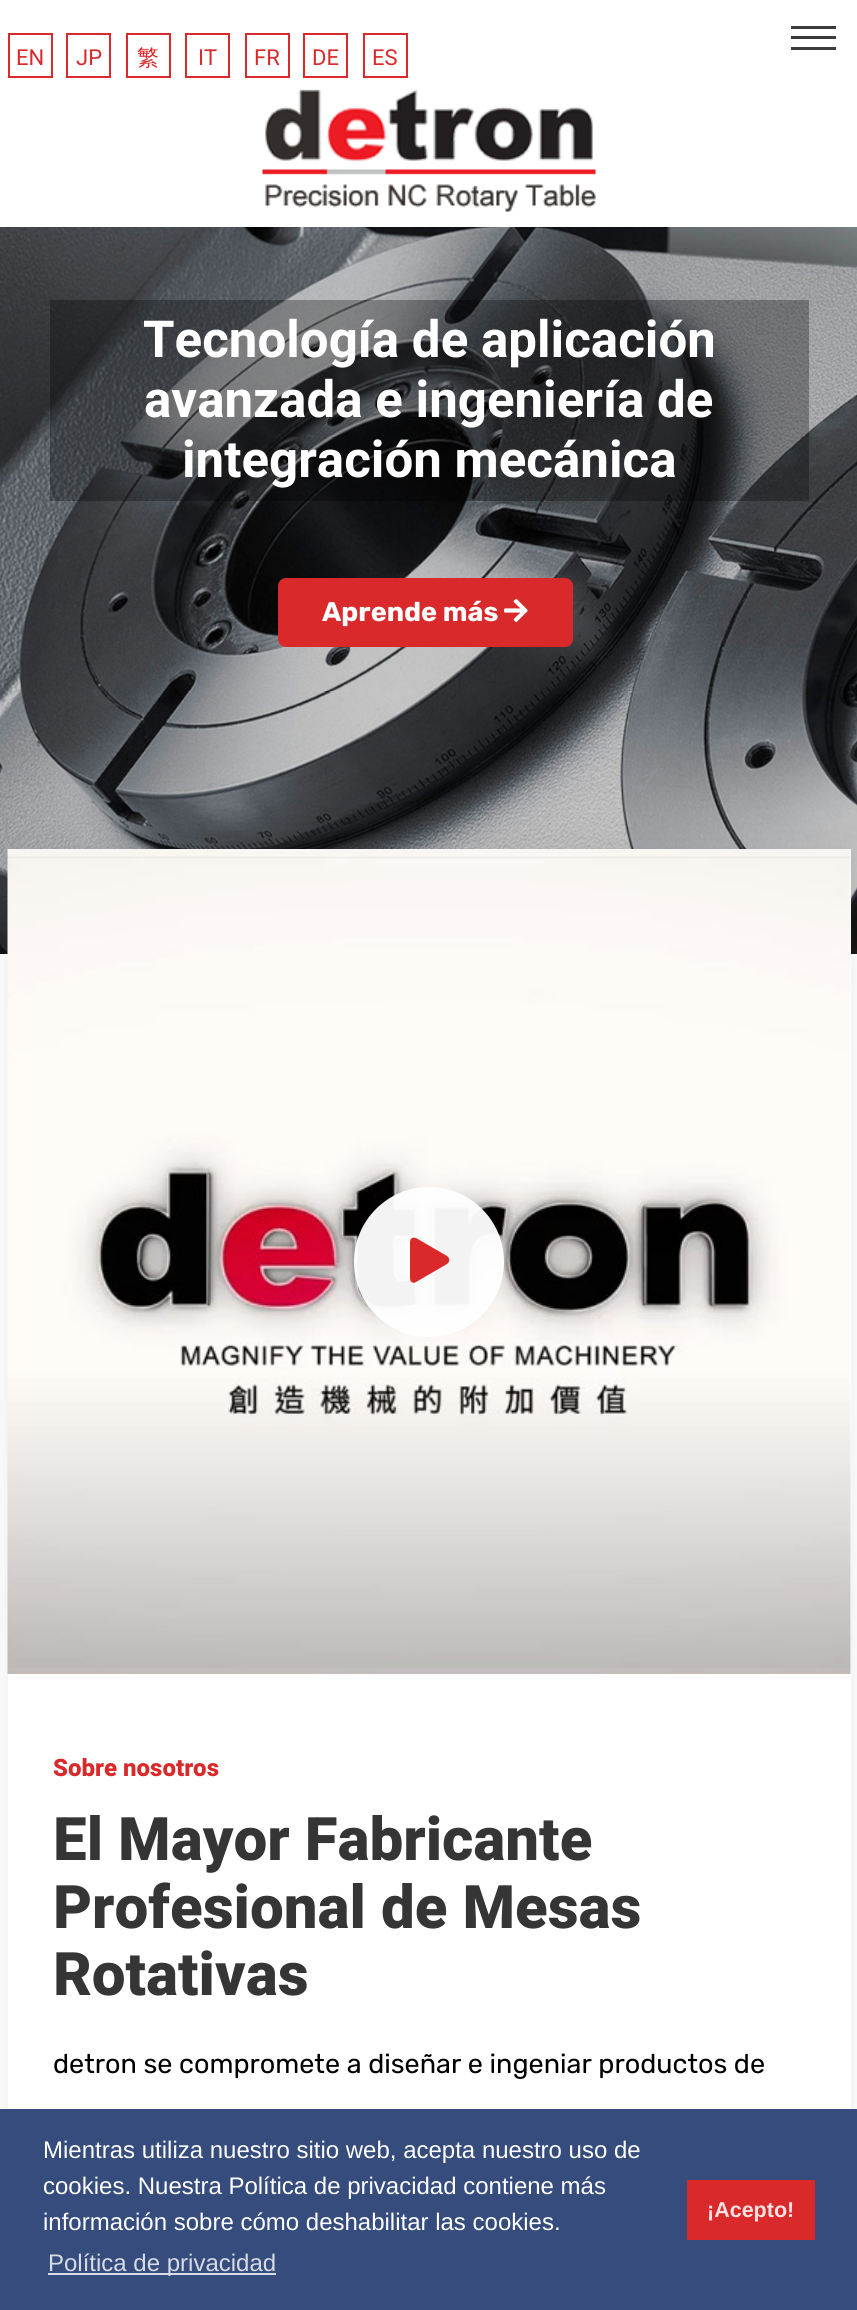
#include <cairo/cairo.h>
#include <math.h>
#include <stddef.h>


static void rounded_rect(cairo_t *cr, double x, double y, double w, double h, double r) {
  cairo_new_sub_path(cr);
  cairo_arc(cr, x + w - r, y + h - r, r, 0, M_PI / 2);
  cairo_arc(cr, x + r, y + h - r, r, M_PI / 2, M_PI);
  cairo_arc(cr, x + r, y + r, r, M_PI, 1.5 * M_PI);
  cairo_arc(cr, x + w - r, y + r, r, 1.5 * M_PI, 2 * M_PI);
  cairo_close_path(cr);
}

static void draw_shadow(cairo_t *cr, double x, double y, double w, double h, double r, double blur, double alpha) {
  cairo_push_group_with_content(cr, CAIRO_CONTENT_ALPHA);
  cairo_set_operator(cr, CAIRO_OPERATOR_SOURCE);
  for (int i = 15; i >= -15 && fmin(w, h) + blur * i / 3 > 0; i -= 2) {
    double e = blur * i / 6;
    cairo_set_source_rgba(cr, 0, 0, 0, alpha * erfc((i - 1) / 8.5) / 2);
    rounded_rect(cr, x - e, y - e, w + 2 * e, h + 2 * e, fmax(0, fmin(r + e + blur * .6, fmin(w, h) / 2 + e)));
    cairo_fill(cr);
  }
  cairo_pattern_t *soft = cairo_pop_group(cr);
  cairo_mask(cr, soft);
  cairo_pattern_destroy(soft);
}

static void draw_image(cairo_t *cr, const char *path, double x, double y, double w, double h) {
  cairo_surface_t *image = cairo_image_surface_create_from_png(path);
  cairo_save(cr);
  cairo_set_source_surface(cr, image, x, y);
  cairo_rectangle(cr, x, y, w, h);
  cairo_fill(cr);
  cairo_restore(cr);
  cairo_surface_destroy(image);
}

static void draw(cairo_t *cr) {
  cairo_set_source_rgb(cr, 1, 1, 1);
  cairo_paint(cr);
  cairo_set_source_rgb(cr, 59 / 255.0, 59 / 255.0, 59 / 255.0);
  cairo_rectangle(cr, 791, 26, 45, 3);
  cairo_fill(cr);
  cairo_rectangle(cr, 791, 36, 45, 3);
  cairo_fill(cr);
  cairo_rectangle(cr, 791, 47, 45, 3);
  cairo_fill(cr);
  cairo_rectangle(cr, 9, 34, 43, 43);
  cairo_set_source_rgb(cr, 218 / 255.0, 41 / 255.0, 42 / 255.0);
  cairo_stroke(cr);
  cairo_rectangle(cr, 67, 34, 43, 43);
  cairo_stroke(cr);
  cairo_rectangle(cr, 127, 34, 43, 43);
  cairo_stroke(cr);
  cairo_rectangle(cr, 186, 34, 43, 43);
  cairo_stroke(cr);
  cairo_rectangle(cr, 246, 34, 43, 43);
  cairo_stroke(cr);
  cairo_rectangle(cr, 304, 34, 43, 43);
  cairo_stroke(cr);
  cairo_rectangle(cr, 364, 34, 43, 43);
  cairo_stroke(cr);
  draw_image(cr, "images/1.png", 262, 89, 334, 123);
  draw_image(cr, "images/2.png", 0, 227, 857, 727);
  cairo_set_source_rgba(cr, 0, 0, 0, 0.3);
  cairo_rectangle(cr, 50, 300, 759, 201);
  cairo_fill(cr);
  cairo_set_source_rgb(cr, 218 / 255.0, 41 / 255.0, 42 / 255.0);
  rounded_rect(cr, 278, 578, 295, 69, 8);
  cairo_fill(cr);
  draw_image(cr, "images/3.png", 504, 599, 24, 23);
  cairo_set_source_rgb(cr, 0, 0, 0);
  draw_shadow(cr, 8, 849, 843, 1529, 0, 22.5, 0.08);
  cairo_set_source_rgb(cr, 1, 1, 1);
  cairo_rectangle(cr, 8, 849, 843, 1260);
  cairo_fill(cr);
  draw_image(cr, "images/4.png", 7, 849, 844, 825);
  cairo_set_source_rgba(cr, 1, 1, 1, 0.95);
  cairo_arc(cr, 429, 1262, 75, 0, 2 * M_PI);
  cairo_fill(cr);
  cairo_set_source_rgb(cr, 218 / 255.0, 41 / 255.0, 42 / 255.0);
  cairo_new_path(cr);
  cairo_move_to(cr, 447, 1256);
  cairo_line_to(cr, 416, 1238);
  cairo_curve_to(cr, 413, 1237, 410, 1238, 410, 1242);
  cairo_line_to(cr, 410, 1278);
  cairo_curve_to(cr, 410, 1282, 413, 1284, 416, 1282);
  cairo_line_to(cr, 447, 1264);
  cairo_curve_to(cr, 450, 1262, 450, 1258, 447, 1256);
  cairo_close_path(cr);
  cairo_fill(cr);
  cairo_set_source_rgb(cr, 53 / 255.0, 76 / 255.0, 125 / 255.0);
  cairo_rectangle(cr, 0, 2109, 857, 201);
  cairo_fill(cr);
  cairo_set_source_rgb(cr, 215 / 255.0, 219 / 255.0, 229 / 255.0);
  cairo_rectangle(cr, 48, 2273, 228, 2);
  cairo_fill(cr);
  cairo_set_source_rgb(cr, 218 / 255.0, 41 / 255.0, 42 / 255.0);
  cairo_rectangle(cr, 687, 2180, 128, 60);
  cairo_fill(cr);
  cairo_select_font_face(cr, "Roboto", CAIRO_FONT_SLANT_NORMAL, CAIRO_FONT_WEIGHT_NORMAL);
  cairo_set_font_size(cr, 22);
  cairo_move_to(cr, 16, 65);
  cairo_show_text(cr, "EN");
  cairo_move_to(cr, 76, 65);
  cairo_show_text(cr, "JP");
  cairo_select_font_face(cr, "WenQuanYi Zen Hei Medium", CAIRO_FONT_SLANT_NORMAL, CAIRO_FONT_WEIGHT_NORMAL);
  cairo_move_to(cr, 137, 65);
  cairo_show_text(cr, "繁");
  cairo_select_font_face(cr, "Roboto", CAIRO_FONT_SLANT_NORMAL, CAIRO_FONT_WEIGHT_NORMAL);
  cairo_move_to(cr, 198, 65);
  cairo_show_text(cr, "IT");
  cairo_move_to(cr, 254, 65);
  cairo_show_text(cr, "FR");
  cairo_move_to(cr, 312, 65);
  cairo_show_text(cr, "DE");
  cairo_move_to(cr, 372, 65);
  cairo_show_text(cr, "ES");
  cairo_select_font_face(cr, "Heebo", CAIRO_FONT_SLANT_NORMAL, CAIRO_FONT_WEIGHT_BOLD);
  cairo_set_font_size(cr, 51);
  cairo_set_source_rgb(cr, 1, 1, 1);
  cairo_move_to(cr, 143, 357);
  cairo_show_text(cr, "Tecnología de aplicación");
  cairo_move_to(cr, 144, 417);
  cairo_show_text(cr, "avanzada e ingeniería de");
  cairo_move_to(cr, 182, 477);
  cairo_show_text(cr, "integración mecánica");
  cairo_select_font_face(cr, "Rubik", CAIRO_FONT_SLANT_NORMAL, CAIRO_FONT_WEIGHT_BOLD);
  cairo_set_font_size(cr, 27);
  cairo_move_to(cr, 322, 621);
  cairo_show_text(cr, "Aprende más");
  cairo_select_font_face(cr, "Heebo ExtraBold", CAIRO_FONT_SLANT_NORMAL, CAIRO_FONT_WEIGHT_NORMAL);
  cairo_set_font_size(cr, 24);
  cairo_set_source_rgb(cr, 218 / 255.0, 41 / 255.0, 42 / 255.0);
  cairo_move_to(cr, 53, 1776);
  cairo_show_text(cr, "Sobre nosotros");
  cairo_set_font_size(cr, 60);
  cairo_set_source_rgb(cr, 53 / 255.0, 53 / 255.0, 53 / 255.0);
  cairo_move_to(cr, 53, 1860);
  cairo_show_text(cr, "El Mayor Fabricante");
  cairo_move_to(cr, 53, 1928);
  cairo_show_text(cr, "Profesional de Mesas");
  cairo_move_to(cr, 53, 1995);
  cairo_show_text(cr, "Rotativas");
  cairo_select_font_face(cr, "Rubik", CAIRO_FONT_SLANT_NORMAL, CAIRO_FONT_WEIGHT_NORMAL);
  cairo_set_font_size(cr, 27);
  cairo_set_source_rgb(cr, 0, 0, 0);
  cairo_move_to(cr, 53, 2073);
  cairo_show_text(cr, "detron se compromete a diseñar e ingeniar productos de");
  cairo_select_font_face(cr, "Liberation Sans", CAIRO_FONT_SLANT_NORMAL, CAIRO_FONT_WEIGHT_NORMAL);
  cairo_set_font_size(cr, 24);
  cairo_set_source_rgb(cr, 1, 1, 1);
  cairo_move_to(cr, 43, 2158);
  cairo_show_text(cr, "Mientras utiliza nuestro sitio web, acepta nuestro uso de");
  cairo_move_to(cr, 43, 2194);
  cairo_show_text(cr, "cookies. Nuestra Política de privacidad contiene más");
  cairo_move_to(cr, 43, 2230);
  cairo_show_text(cr, "información sobre cómo deshabilitar las cookies.");
  cairo_set_source_rgb(cr, 215 / 255.0, 219 / 255.0, 229 / 255.0);
  cairo_move_to(cr, 48, 2271);
  cairo_show_text(cr, "Política de privacidad");
  cairo_select_font_face(cr, "Liberation Sans", CAIRO_FONT_SLANT_NORMAL, CAIRO_FONT_WEIGHT_BOLD);
  cairo_set_font_size(cr, 21.5);
  cairo_set_source_rgb(cr, 250 / 255.0, 225 / 255.0, 225 / 255.0);
  cairo_move_to(cr, 707, 2217);
  cairo_show_text(cr, "¡Acepto!");
}

int main(void) {
  cairo_surface_t *surface = cairo_image_surface_create(CAIRO_FORMAT_RGB24, 857, 2310);
  cairo_t *cr = cairo_create(surface);
  cairo_font_options_t *options = cairo_font_options_create();
  cairo_font_options_set_hint_metrics(options, CAIRO_HINT_METRICS_OFF);
  cairo_font_options_set_hint_style(options, CAIRO_HINT_STYLE_NONE);
  cairo_set_font_options(cr, options);
  cairo_set_miter_limit(cr, 4);
  draw(cr);
  cairo_surface_write_to_png(surface, "out.png");
  cairo_font_options_destroy(options);
  cairo_destroy(cr);
  cairo_surface_destroy(surface);
  return 0;
}
